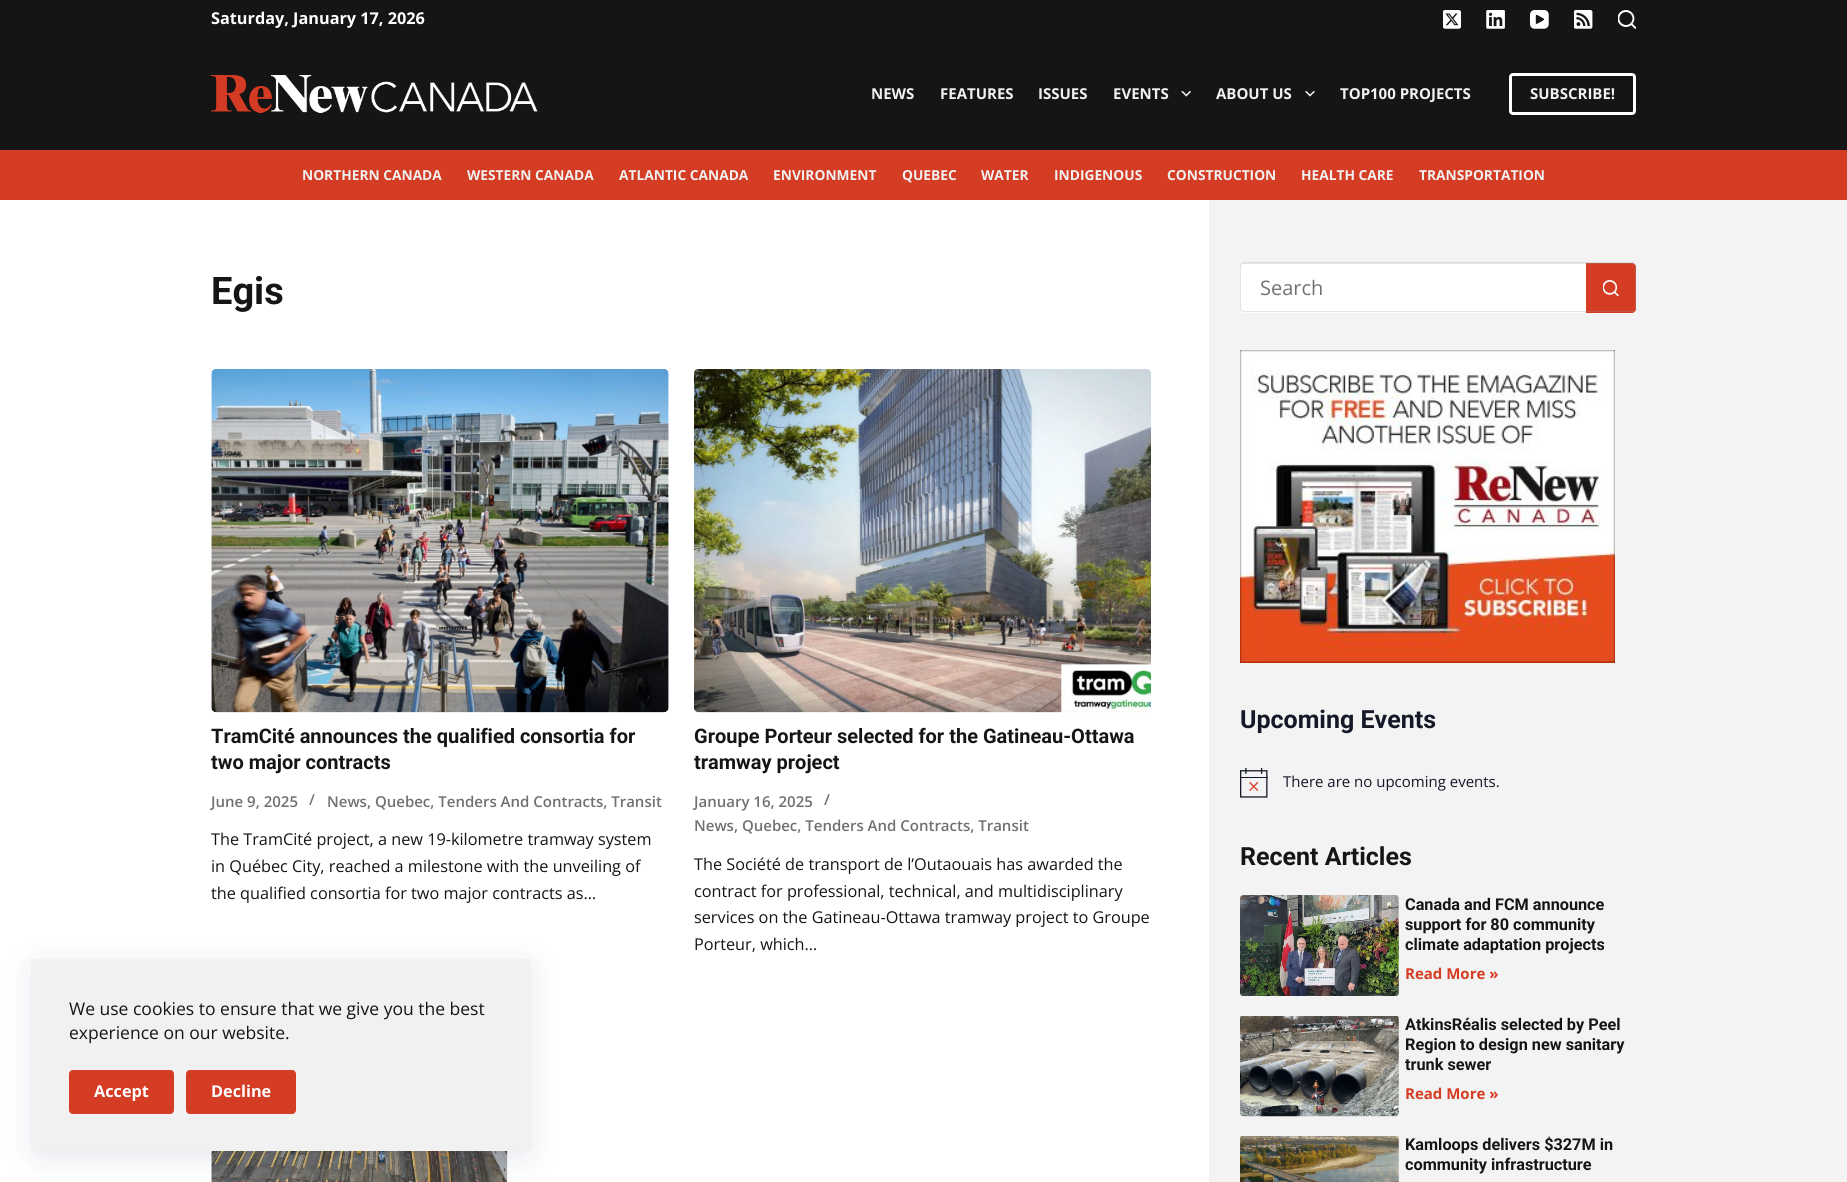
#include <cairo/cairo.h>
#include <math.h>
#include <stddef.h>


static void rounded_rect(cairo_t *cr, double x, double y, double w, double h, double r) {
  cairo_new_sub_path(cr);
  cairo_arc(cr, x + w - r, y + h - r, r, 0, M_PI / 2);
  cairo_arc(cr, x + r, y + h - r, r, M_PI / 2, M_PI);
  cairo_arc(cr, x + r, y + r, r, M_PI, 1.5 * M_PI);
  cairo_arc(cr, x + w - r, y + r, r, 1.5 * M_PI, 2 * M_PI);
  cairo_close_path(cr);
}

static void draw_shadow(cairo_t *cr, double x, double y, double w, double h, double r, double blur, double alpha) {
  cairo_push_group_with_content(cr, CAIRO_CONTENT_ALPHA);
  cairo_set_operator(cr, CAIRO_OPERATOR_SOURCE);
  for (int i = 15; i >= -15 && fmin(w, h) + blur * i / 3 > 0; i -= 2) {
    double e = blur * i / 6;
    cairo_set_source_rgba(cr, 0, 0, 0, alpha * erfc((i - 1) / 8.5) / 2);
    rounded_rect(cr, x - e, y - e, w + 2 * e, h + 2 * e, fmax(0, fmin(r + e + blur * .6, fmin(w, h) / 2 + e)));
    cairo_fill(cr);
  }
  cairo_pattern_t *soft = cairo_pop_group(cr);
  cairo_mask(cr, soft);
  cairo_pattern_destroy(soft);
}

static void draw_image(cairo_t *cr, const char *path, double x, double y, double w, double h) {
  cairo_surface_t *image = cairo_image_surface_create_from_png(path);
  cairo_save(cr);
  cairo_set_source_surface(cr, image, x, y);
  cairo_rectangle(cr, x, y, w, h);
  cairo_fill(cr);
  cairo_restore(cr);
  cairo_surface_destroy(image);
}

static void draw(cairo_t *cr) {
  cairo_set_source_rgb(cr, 1, 1, 1);
  cairo_paint(cr);
  cairo_set_source_rgb(cr, 21 / 255.0, 21 / 255.0, 21 / 255.0);
  cairo_rectangle(cr, 0, 0, 1847, 150);
  cairo_fill(cr);
  draw_image(cr, "images/1.png", 1443, 10, 18, 19);
  draw_image(cr, "images/2.png", 1486, 10, 19, 19);
  draw_image(cr, "images/3.png", 1530, 10, 19, 19);
  draw_image(cr, "images/4.png", 1574, 10, 19, 19);
  draw_image(cr, "images/5.png", 1618, 10, 18, 19);
  draw_image(cr, "images/6.png", 211, 75, 327, 38);
  draw_image(cr, "images/7.png", 1181, 91, 10, 6);
  draw_image(cr, "images/8.png", 1305, 91, 10, 6);
  rounded_rect(cr, 1510.5, 74.5, 124, 39, 2.5);
  cairo_set_source_rgb(cr, 1, 1, 1);
  cairo_set_line_width(cr, 3);
  cairo_stroke(cr);
  cairo_set_source_rgb(cr, 212 / 255.0, 60 / 255.0, 36 / 255.0);
  cairo_rectangle(cr, 0, 150, 1847, 50);
  cairo_fill(cr);
  draw_image(cr, "images/9.png", 211, 369, 458, 344);
  draw_image(cr, "images/10.png", 694, 369, 457, 344);
  draw_image(cr, "images/11.png", 211, 1151, 297, 31);
  cairo_set_source_rgb(cr, 243 / 255.0, 243 / 255.0, 243 / 255.0);
  cairo_rectangle(cr, 1209, 200, 638, 982);
  cairo_fill(cr);
  cairo_set_source_rgb(cr, 1, 1, 1);
  cairo_new_path(cr);
  cairo_move_to(cr, 1244, 263);
  cairo_line_to(cr, 1586, 263);
  cairo_line_to(cr, 1586, 313);
  cairo_line_to(cr, 1244, 313);
  cairo_curve_to(cr, 1242, 313, 1240, 311, 1240, 309);
  cairo_line_to(cr, 1240, 267);
  cairo_curve_to(cr, 1240, 265, 1242, 263, 1244, 263);
  cairo_close_path(cr);
  cairo_fill(cr);
  cairo_set_source_rgba(cr, 156 / 255.0, 156 / 255.0, 156 / 255.0, 0.27);
  cairo_set_fill_rule(cr, CAIRO_FILL_RULE_EVEN_ODD);
  cairo_new_path(cr);
  cairo_move_to(cr, 1244, 262);
  cairo_line_to(cr, 1586, 262);
  cairo_line_to(cr, 1586, 312);
  cairo_line_to(cr, 1244, 312);
  cairo_curve_to(cr, 1242, 312, 1240, 311, 1240, 309);
  cairo_line_to(cr, 1240, 266);
  cairo_curve_to(cr, 1240, 264, 1242, 262, 1244, 262);
  cairo_close_path(cr);
  cairo_move_to(cr, 1244, 264);
  cairo_line_to(cr, 1586, 264);
  cairo_line_to(cr, 1586, 311);
  cairo_line_to(cr, 1244, 311);
  cairo_curve_to(cr, 1242, 311, 1241, 310, 1241, 309);
  cairo_line_to(cr, 1241, 266);
  cairo_curve_to(cr, 1241, 265, 1242, 264, 1244, 264);
  cairo_close_path(cr);
  cairo_fill(cr);
  cairo_set_source_rgb(cr, 212 / 255.0, 60 / 255.0, 36 / 255.0);
  cairo_new_path(cr);
  cairo_move_to(cr, 1586, 263);
  cairo_line_to(cr, 1632, 263);
  cairo_curve_to(cr, 1634, 263, 1636, 265, 1636, 267);
  cairo_line_to(cr, 1636, 309);
  cairo_curve_to(cr, 1636, 311, 1634, 313, 1632, 313);
  cairo_line_to(cr, 1586, 313);
  cairo_close_path(cr);
  cairo_fill(cr);
  cairo_set_source_rgba(cr, 156 / 255.0, 156 / 255.0, 156 / 255.0, 0.27);
  cairo_new_path(cr);
  cairo_move_to(cr, 1586, 262);
  cairo_line_to(cr, 1632, 262);
  cairo_curve_to(cr, 1635, 262, 1636, 264, 1636, 266);
  cairo_line_to(cr, 1636, 309);
  cairo_curve_to(cr, 1636, 311, 1635, 312, 1632, 312);
  cairo_line_to(cr, 1586, 312);
  cairo_close_path(cr);
  cairo_move_to(cr, 1586, 264);
  cairo_line_to(cr, 1632, 264);
  cairo_curve_to(cr, 1634, 264, 1635, 265, 1635, 266);
  cairo_line_to(cr, 1635, 309);
  cairo_curve_to(cr, 1635, 310, 1634, 311, 1632, 311);
  cairo_line_to(cr, 1586, 311);
  cairo_close_path(cr);
  cairo_fill(cr);
  draw_image(cr, "images/12.png", 1603, 280, 16, 16);
  draw_image(cr, "images/13.png", 1240, 350, 375, 313);
  draw_image(cr, "images/14.png", 1240, 768, 28, 30);
  draw_image(cr, "images/15.png", 1240, 895, 159, 101);
  draw_image(cr, "images/16.png", 1240, 1016, 159, 101);
  draw_image(cr, "images/17.png", 1240, 1136, 159, 46);
  cairo_set_source_rgb(cr, 34 / 255.0, 56 / 255.0, 101 / 255.0);
  draw_shadow(cr, 38, 971, 487, 180, 0, 19, 0.15);
  cairo_set_source_rgb(cr, 241 / 255.0, 241 / 255.0, 241 / 255.0);
  rounded_rect(cr, 31, 959, 500, 192, 4);
  cairo_fill(cr);
  cairo_set_source_rgb(cr, 212 / 255.0, 60 / 255.0, 36 / 255.0);
  rounded_rect(cr, 69, 1070, 105, 44, 4);
  cairo_fill(cr);
  rounded_rect(cr, 186, 1070, 110, 44, 4);
  cairo_fill(cr);
  cairo_select_font_face(cr, "Open Sans", CAIRO_FONT_SLANT_NORMAL, CAIRO_FONT_WEIGHT_BOLD);
  cairo_set_font_size(cr, 16.25);
  cairo_set_source_rgb(cr, 1, 1, 1);
  cairo_move_to(cr, 211, 24);
  cairo_show_text(cr, "Saturday, January 17, 2026");
  cairo_set_font_size(cr, 15);
  cairo_set_source_rgb(cr, 241 / 255.0, 241 / 255.0, 241 / 255.0);
  cairo_move_to(cr, 871, 99);
  cairo_show_text(cr, "NEWS");
  cairo_move_to(cr, 940, 99);
  cairo_show_text(cr, "FEATURES");
  cairo_move_to(cr, 1038, 99);
  cairo_show_text(cr, "ISSUES");
  cairo_move_to(cr, 1113, 99);
  cairo_show_text(cr, "EVENTS");
  cairo_move_to(cr, 1216, 99);
  cairo_show_text(cr, "ABOUT US");
  cairo_move_to(cr, 1340, 99);
  cairo_show_text(cr, "TOP100 PROJECTS");
  cairo_move_to(cr, 1530, 99);
  cairo_show_text(cr, "SUBSCRIBE!");
  cairo_set_font_size(cr, 13.75);
  cairo_move_to(cr, 302, 180);
  cairo_show_text(cr, "NORTHERN CANADA");
  cairo_move_to(cr, 467, 180);
  cairo_show_text(cr, "WESTERN CANADA");
  cairo_move_to(cr, 619, 180);
  cairo_show_text(cr, "ATLANTIC CANADA");
  cairo_move_to(cr, 773, 180);
  cairo_show_text(cr, "ENVIRONMENT");
  cairo_move_to(cr, 902, 180);
  cairo_show_text(cr, "QUEBEC");
  cairo_move_to(cr, 981, 180);
  cairo_show_text(cr, "WATER");
  cairo_move_to(cr, 1054, 180);
  cairo_show_text(cr, "INDIGENOUS");
  cairo_move_to(cr, 1167, 180);
  cairo_show_text(cr, "CONSTRUCTION");
  cairo_move_to(cr, 1301, 180);
  cairo_show_text(cr, "HEALTH CARE");
  cairo_move_to(cr, 1419, 180);
  cairo_show_text(cr, "TRANSPORTATION");
  cairo_select_font_face(cr, "Roboto", CAIRO_FONT_SLANT_NORMAL, CAIRO_FONT_WEIGHT_BOLD);
  cairo_set_font_size(cr, 38);
  cairo_set_source_rgb(cr, 21 / 255.0, 21 / 255.0, 21 / 255.0);
  cairo_move_to(cr, 211, 304);
  cairo_show_text(cr, "Egis");
  cairo_set_font_size(cr, 20);
  cairo_move_to(cr, 211, 743);
  cairo_show_text(cr, "TramCité announces the qualified consortia for");
  cairo_move_to(cr, 211, 769);
  cairo_show_text(cr, "two major contracts");
  cairo_select_font_face(cr, "Open Sans SemiBold", CAIRO_FONT_SLANT_NORMAL, CAIRO_FONT_WEIGHT_NORMAL);
  cairo_set_font_size(cr, 15);
  cairo_set_source_rgb(cr, 113 / 255.0, 113 / 255.0, 113 / 255.0);
  cairo_move_to(cr, 211, 807);
  cairo_show_text(cr, "June 9, 2025");
  cairo_move_to(cr, 309, 805);
  cairo_show_text(cr, "/");
  cairo_move_to(cr, 327, 807);
  cairo_show_text(cr, "News, Quebec, Tenders And Contracts, Transit");
  cairo_select_font_face(cr, "Open Sans", CAIRO_FONT_SLANT_NORMAL, CAIRO_FONT_WEIGHT_NORMAL);
  cairo_set_font_size(cr, 16.25);
  cairo_set_source_rgb(cr, 21 / 255.0, 21 / 255.0, 21 / 255.0);
  cairo_move_to(cr, 211, 845);
  cairo_show_text(cr, "The TramCité project, a new 19-kilometre tramway system");
  cairo_move_to(cr, 211, 872);
  cairo_show_text(cr, "in Québec City, reached a milestone with the unveiling of");
  cairo_move_to(cr, 211, 899);
  cairo_show_text(cr, "the qualified consortia for two major contracts as…");
  cairo_select_font_face(cr, "Roboto", CAIRO_FONT_SLANT_NORMAL, CAIRO_FONT_WEIGHT_BOLD);
  cairo_set_font_size(cr, 20);
  cairo_move_to(cr, 694, 743);
  cairo_show_text(cr, "Groupe Porteur selected for the Gatineau-Ottawa");
  cairo_move_to(cr, 694, 769);
  cairo_show_text(cr, "tramway project");
  cairo_select_font_face(cr, "Open Sans SemiBold", CAIRO_FONT_SLANT_NORMAL, CAIRO_FONT_WEIGHT_NORMAL);
  cairo_set_font_size(cr, 15);
  cairo_set_source_rgb(cr, 113 / 255.0, 113 / 255.0, 113 / 255.0);
  cairo_move_to(cr, 694, 807);
  cairo_show_text(cr, "January 16, 2025");
  cairo_move_to(cr, 824, 805);
  cairo_show_text(cr, "/");
  cairo_move_to(cr, 694, 831);
  cairo_show_text(cr, "News, Quebec, Tenders And Contracts, Transit");
  cairo_select_font_face(cr, "Open Sans", CAIRO_FONT_SLANT_NORMAL, CAIRO_FONT_WEIGHT_NORMAL);
  cairo_set_font_size(cr, 16.25);
  cairo_set_source_rgb(cr, 21 / 255.0, 21 / 255.0, 21 / 255.0);
  cairo_move_to(cr, 694, 870);
  cairo_show_text(cr, "The Société de transport de l’Outaouais has awarded the");
  cairo_move_to(cr, 694, 897);
  cairo_show_text(cr, "contract for professional, technical, and multidisciplinary");
  cairo_move_to(cr, 694, 923);
  cairo_show_text(cr, "services on the Gatineau-Ottawa tramway project to Groupe");
  cairo_move_to(cr, 694, 950);
  cairo_show_text(cr, "Porteur, which…");
  cairo_set_font_size(cr, 20);
  cairo_set_source_rgb(cr, 113 / 255.0, 113 / 255.0, 113 / 255.0);
  cairo_move_to(cr, 1260, 295);
  cairo_show_text(cr, "Search");
  cairo_select_font_face(cr, "Roboto", CAIRO_FONT_SLANT_NORMAL, CAIRO_FONT_WEIGHT_BOLD);
  cairo_set_font_size(cr, 25);
  cairo_set_source_rgb(cr, 20 / 255.0, 24 / 255.0, 39 / 255.0);
  cairo_move_to(cr, 1240, 728);
  cairo_show_text(cr, "Upcoming Events");
  cairo_select_font_face(cr, "Open Sans", CAIRO_FONT_SLANT_NORMAL, CAIRO_FONT_WEIGHT_NORMAL);
  cairo_set_font_size(cr, 15);
  cairo_move_to(cr, 1283, 787);
  cairo_show_text(cr, "There are no upcoming events.");
  cairo_select_font_face(cr, "Roboto", CAIRO_FONT_SLANT_NORMAL, CAIRO_FONT_WEIGHT_BOLD);
  cairo_set_font_size(cr, 25);
  cairo_set_source_rgb(cr, 21 / 255.0, 21 / 255.0, 21 / 255.0);
  cairo_move_to(cr, 1240, 865);
  cairo_show_text(cr, "Recent Articles");
  cairo_set_font_size(cr, 16.25);
  cairo_move_to(cr, 1405, 910);
  cairo_show_text(cr, "Canada and FCM announce");
  cairo_move_to(cr, 1405, 930);
  cairo_show_text(cr, "support for 80 community");
  cairo_move_to(cr, 1405, 950);
  cairo_show_text(cr, "climate adaptation projects");
  cairo_select_font_face(cr, "Open Sans", CAIRO_FONT_SLANT_NORMAL, CAIRO_FONT_WEIGHT_BOLD);
  cairo_set_font_size(cr, 15);
  cairo_set_source_rgb(cr, 212 / 255.0, 60 / 255.0, 36 / 255.0);
  cairo_move_to(cr, 1405, 979);
  cairo_show_text(cr, "Read More »");
  cairo_select_font_face(cr, "Roboto", CAIRO_FONT_SLANT_NORMAL, CAIRO_FONT_WEIGHT_BOLD);
  cairo_set_font_size(cr, 16.25);
  cairo_set_source_rgb(cr, 21 / 255.0, 21 / 255.0, 21 / 255.0);
  cairo_move_to(cr, 1405, 1030);
  cairo_show_text(cr, "AtkinsRéalis selected by Peel");
  cairo_move_to(cr, 1405, 1050);
  cairo_show_text(cr, "Region to design new sanitary");
  cairo_move_to(cr, 1405, 1070);
  cairo_show_text(cr, "trunk sewer");
  cairo_select_font_face(cr, "Open Sans", CAIRO_FONT_SLANT_NORMAL, CAIRO_FONT_WEIGHT_BOLD);
  cairo_set_font_size(cr, 15);
  cairo_set_source_rgb(cr, 212 / 255.0, 60 / 255.0, 36 / 255.0);
  cairo_move_to(cr, 1405, 1099);
  cairo_show_text(cr, "Read More »");
  cairo_select_font_face(cr, "Roboto", CAIRO_FONT_SLANT_NORMAL, CAIRO_FONT_WEIGHT_BOLD);
  cairo_set_font_size(cr, 16.25);
  cairo_set_source_rgb(cr, 21 / 255.0, 21 / 255.0, 21 / 255.0);
  cairo_move_to(cr, 1405, 1150);
  cairo_show_text(cr, "Kamloops delivers $327M in");
  cairo_move_to(cr, 1405, 1170);
  cairo_show_text(cr, "community infrastructure");
  cairo_select_font_face(cr, "Open Sans", CAIRO_FONT_SLANT_NORMAL, CAIRO_FONT_WEIGHT_NORMAL);
  cairo_set_font_size(cr, 17.5);
  cairo_move_to(cr, 69, 1015);
  cairo_show_text(cr, "We use cookies to ensure that we give you the best");
  cairo_move_to(cr, 69, 1039);
  cairo_show_text(cr, "experience on our website.");
  cairo_select_font_face(cr, "Open Sans", CAIRO_FONT_SLANT_NORMAL, CAIRO_FONT_WEIGHT_BOLD);
  cairo_set_font_size(cr, 16.25);
  cairo_set_source_rgb(cr, 1, 1, 1);
  cairo_move_to(cr, 94, 1097);
  cairo_show_text(cr, "Accept");
  cairo_move_to(cr, 211, 1097);
  cairo_show_text(cr, "Decline");
}

int main(void) {
  cairo_surface_t *surface = cairo_image_surface_create(CAIRO_FORMAT_RGB24, 1847, 1182);
  cairo_t *cr = cairo_create(surface);
  cairo_font_options_t *options = cairo_font_options_create();
  cairo_font_options_set_hint_metrics(options, CAIRO_HINT_METRICS_OFF);
  cairo_font_options_set_hint_style(options, CAIRO_HINT_STYLE_NONE);
  cairo_set_font_options(cr, options);
  cairo_set_miter_limit(cr, 4);
  draw(cr);
  cairo_surface_write_to_png(surface, "out.png");
  cairo_font_options_destroy(options);
  cairo_destroy(cr);
  cairo_surface_destroy(surface);
  return 0;
}
